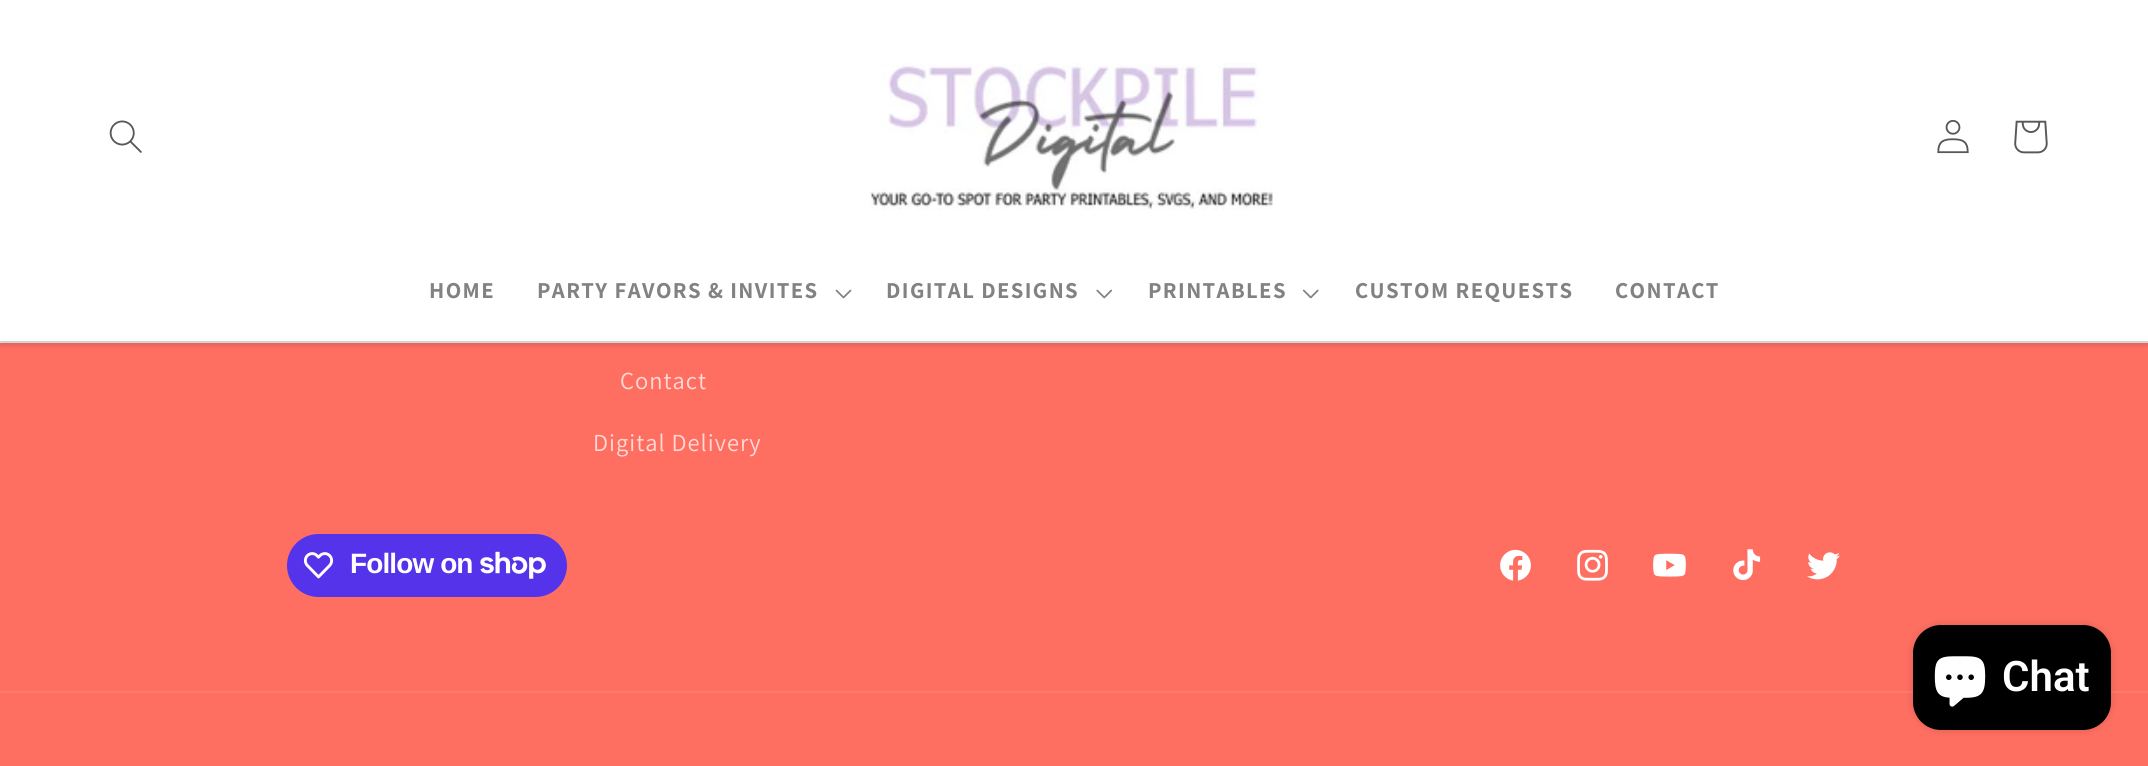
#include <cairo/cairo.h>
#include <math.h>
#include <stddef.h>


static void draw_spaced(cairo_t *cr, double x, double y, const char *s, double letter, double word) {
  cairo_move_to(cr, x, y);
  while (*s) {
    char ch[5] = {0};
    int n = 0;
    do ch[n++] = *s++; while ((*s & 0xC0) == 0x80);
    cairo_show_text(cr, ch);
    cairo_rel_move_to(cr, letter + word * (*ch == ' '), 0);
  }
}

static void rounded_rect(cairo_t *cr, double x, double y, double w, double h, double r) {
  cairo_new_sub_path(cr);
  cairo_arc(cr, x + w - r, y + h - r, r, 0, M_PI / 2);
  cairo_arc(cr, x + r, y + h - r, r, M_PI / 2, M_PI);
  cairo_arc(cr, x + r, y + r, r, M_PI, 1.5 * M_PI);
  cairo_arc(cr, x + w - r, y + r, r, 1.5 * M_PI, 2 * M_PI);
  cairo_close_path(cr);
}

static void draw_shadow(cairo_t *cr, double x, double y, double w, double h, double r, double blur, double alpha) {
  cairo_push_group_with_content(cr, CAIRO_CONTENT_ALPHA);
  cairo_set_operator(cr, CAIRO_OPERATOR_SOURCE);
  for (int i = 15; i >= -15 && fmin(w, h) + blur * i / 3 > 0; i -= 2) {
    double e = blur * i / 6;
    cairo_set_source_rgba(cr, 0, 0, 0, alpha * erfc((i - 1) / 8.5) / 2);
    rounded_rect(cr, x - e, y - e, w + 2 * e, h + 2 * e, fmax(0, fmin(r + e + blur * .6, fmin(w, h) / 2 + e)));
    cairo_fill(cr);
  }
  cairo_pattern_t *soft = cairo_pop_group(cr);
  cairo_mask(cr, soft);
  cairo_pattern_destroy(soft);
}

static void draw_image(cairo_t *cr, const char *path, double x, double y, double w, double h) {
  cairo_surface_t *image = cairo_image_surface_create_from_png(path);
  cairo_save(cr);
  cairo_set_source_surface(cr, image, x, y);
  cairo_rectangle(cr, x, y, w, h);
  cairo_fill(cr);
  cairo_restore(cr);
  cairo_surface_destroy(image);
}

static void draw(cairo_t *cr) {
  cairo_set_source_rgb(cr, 1, 111 / 255.0, 97 / 255.0);
  cairo_paint(cr);
  cairo_set_source_rgb(cr, 1, 1, 1);
  cairo_rectangle(cr, 0, 0, 2148, 341);
  cairo_fill(cr);
  cairo_set_source_rgb(cr, 242 / 255.0, 242 / 255.0, 242 / 255.0);
  cairo_rectangle(cr, 0, 341, 2148, 2);
  cairo_fill(cr);
  cairo_save(cr);
  cairo_rectangle(cr, 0, 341, 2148, 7);
  cairo_clip(cr);
  cairo_set_source_rgb(cr, 0, 0, 0);
  draw_shadow(cr, 0, 0, 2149, 341, 0, 5, 0.3);
  cairo_restore(cr);
  draw_image(cr, "images/1.png", 109, 120, 33, 33);
  draw_image(cr, "images/2.png", 869, 63, 404, 147);
  draw_image(cr, "images/3.png", 1937, 119, 32, 35);
  draw_image(cr, "images/4.png", 2014, 120, 34, 34);
  draw_image(cr, "images/5.png", 835, 289, 17, 10);
  draw_image(cr, "images/6.png", 1096, 289, 17, 10);
  draw_image(cr, "images/7.png", 1302, 289, 17, 10);
  cairo_set_source_rgb(cr, 84 / 255.0, 51 / 255.0, 235 / 255.0);
  rounded_rect(cr, 287, 534, 280, 63, 31.5);
  cairo_fill(cr);
  draw_image(cr, "images/8.png", 303, 552, 31, 27);
  draw_image(cr, "images/9.png", 480, 551, 66, 28);
  draw_image(cr, "images/10.png", 1500, 549, 31, 32);
  draw_image(cr, "images/11.png", 1577, 549, 31, 32);
  draw_image(cr, "images/12.png", 1653, 553, 33, 24);
  draw_image(cr, "images/13.png", 1733, 549, 28, 32);
  draw_image(cr, "images/14.png", 1807, 552, 33, 28);
  cairo_set_source_rgb(cr, 1, 123 / 255.0, 110 / 255.0);
  cairo_rectangle(cr, 0, 691, 2148, 2);
  cairo_fill(cr);
  cairo_set_source_rgb(cr, 0, 0, 0);
  draw_shadow(cr, 1913, 625, 198, 105, 28, 4.5, 0.15);
  cairo_set_source_rgb(cr, 0, 0, 0);
  rounded_rect(cr, 1913, 625, 198, 105, 28);
  cairo_fill(cr);
  draw_image(cr, "images/15.png", 1934, 656, 52, 51);
  cairo_select_font_face(cr, "Assistant", CAIRO_FONT_SLANT_NORMAL, CAIRO_FONT_WEIGHT_BOLD);
  cairo_set_font_size(cr, 22.75);
  cairo_set_source_rgb(cr, 131 / 255.0, 129 / 255.0, 129 / 255.0);
  draw_spaced(cr, 429, 298, "HOME", 1.4, 0);
  draw_spaced(cr, 537, 298, "PARTY FAVORS & INVITES", 1.4, 0);
  draw_spaced(cr, 886, 298, "DIGITAL DESIGNS", 1.4, 0);
  draw_spaced(cr, 1148, 298, "PRINTABLES", 1.4, 0);
  draw_spaced(cr, 1355, 298, "CUSTOM REQUESTS", 1.4, 0);
  draw_spaced(cr, 1615, 298, "CONTACT", 1.4, 0);
  cairo_select_font_face(cr, "Assistant", CAIRO_FONT_SLANT_NORMAL, CAIRO_FONT_WEIGHT_NORMAL);
  cairo_set_font_size(cr, 24.5);
  cairo_set_source_rgb(cr, 1, 219 / 255.0, 216 / 255.0);
  draw_spaced(cr, 620, 389, "Contact", 1, 0);
  draw_spaced(cr, 593, 451, "Digital Delivery", 1, 0);
  cairo_select_font_face(cr, "Liberation Sans", CAIRO_FONT_SLANT_NORMAL, CAIRO_FONT_WEIGHT_BOLD);
  cairo_set_font_size(cr, 28);
  cairo_set_source_rgb(cr, 1, 1, 1);
  draw_spaced(cr, 350, 573, "Follow on", -0.9, 0);
  cairo_select_font_face(cr, "Roboto SemiBold", CAIRO_FONT_SLANT_NORMAL, CAIRO_FONT_WEIGHT_NORMAL);
  cairo_set_font_size(cr, 42);
  cairo_move_to(cr, 2002, 691);
  cairo_show_text(cr, "Chat");
}

int main(void) {
  cairo_surface_t *surface = cairo_image_surface_create(CAIRO_FORMAT_RGB24, 2148, 766);
  cairo_t *cr = cairo_create(surface);
  cairo_font_options_t *options = cairo_font_options_create();
  cairo_font_options_set_hint_metrics(options, CAIRO_HINT_METRICS_OFF);
  cairo_font_options_set_hint_style(options, CAIRO_HINT_STYLE_NONE);
  cairo_set_font_options(cr, options);
  cairo_set_miter_limit(cr, 4);
  draw(cr);
  cairo_surface_write_to_png(surface, "out.png");
  cairo_font_options_destroy(options);
  cairo_destroy(cr);
  cairo_surface_destroy(surface);
  return 0;
}
